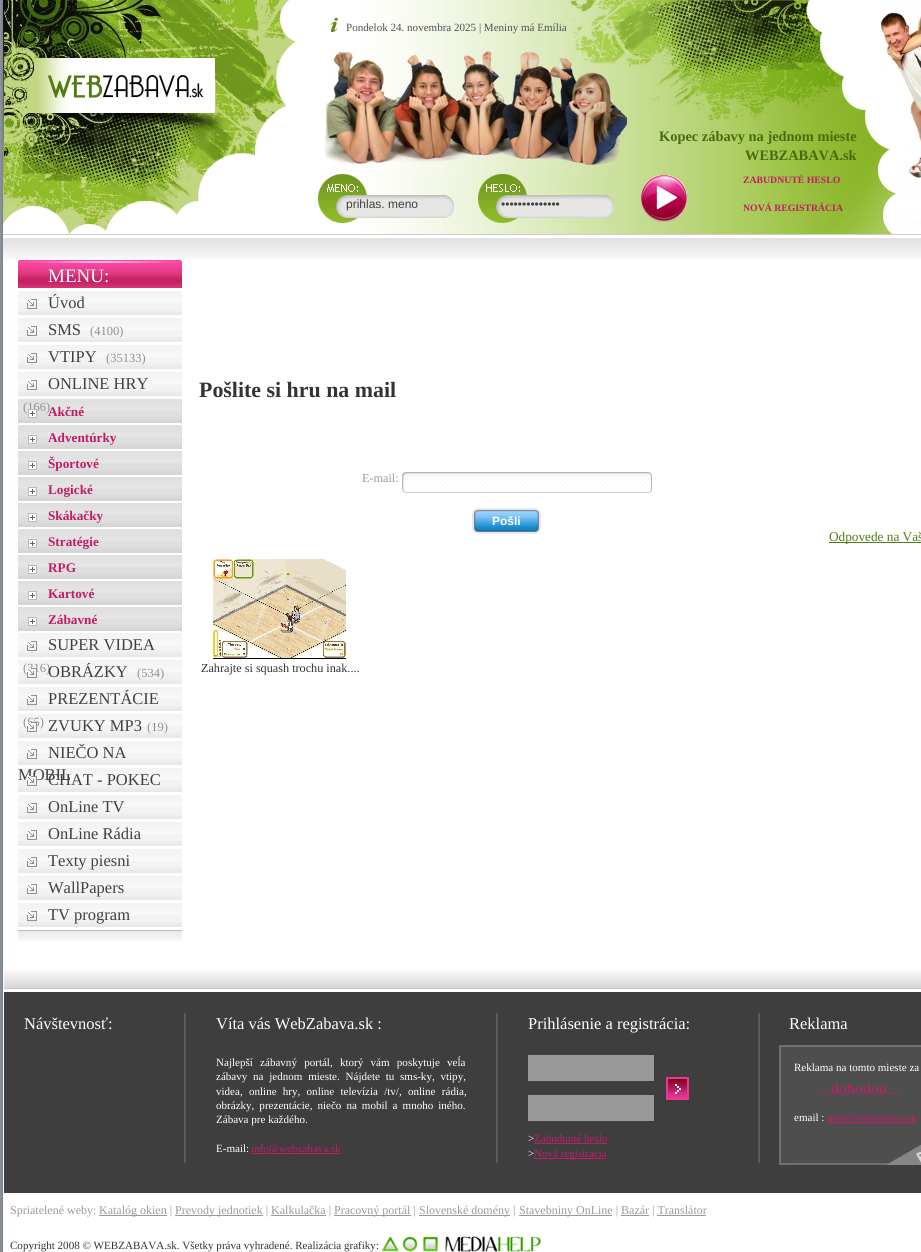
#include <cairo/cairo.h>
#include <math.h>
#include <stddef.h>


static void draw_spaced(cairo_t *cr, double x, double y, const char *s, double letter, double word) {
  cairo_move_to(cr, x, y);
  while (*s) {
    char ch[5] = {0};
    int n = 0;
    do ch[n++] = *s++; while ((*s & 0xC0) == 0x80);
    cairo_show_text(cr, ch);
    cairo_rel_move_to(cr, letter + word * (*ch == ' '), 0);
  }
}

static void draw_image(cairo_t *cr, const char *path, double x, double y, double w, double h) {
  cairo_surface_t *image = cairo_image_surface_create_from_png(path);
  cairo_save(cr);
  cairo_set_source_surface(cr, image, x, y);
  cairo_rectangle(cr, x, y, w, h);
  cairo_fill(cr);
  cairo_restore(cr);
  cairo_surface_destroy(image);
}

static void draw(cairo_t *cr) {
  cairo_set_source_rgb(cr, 1, 1, 1);
  cairo_paint(cr);
  draw_image(cr, "images/1.png", 0, 0, 921, 1252);
  draw_image(cr, "images/2.png", 3, 0, 918, 234);
  cairo_set_source_rgb(cr, 204 / 255.0, 204 / 255.0, 204 / 255.0);
  cairo_rectangle(cr, 3, 234, 918, 1);
  cairo_fill(cr);
  draw_image(cr, "images/3.png", 330, 17, 8, 16);
  draw_image(cr, "images/4.png", 48, 74, 156, 24);
  draw_image(cr, "images/5.png", 318, 174, 296, 49);
  draw_image(cr, "images/6.png", 641, 175, 46, 47);
  draw_image(cr, "images/7.png", 3, 238, 918, 22);
  draw_image(cr, "images/8.png", 18, 260, 164, 28);
  draw_image(cr, "images/9.png", 18, 930, 164, 12);
  draw_image(cr, "images/10.png", 18, 291, 164, 24);
  draw_image(cr, "images/11.png", 27, 299, 10, 10);
  draw_image(cr, "images/10.png", 18, 318, 164, 24);
  draw_image(cr, "images/11.png", 27, 326, 10, 10);
  draw_image(cr, "images/10.png", 18, 345, 164, 24);
  draw_image(cr, "images/11.png", 27, 353, 10, 10);
  draw_image(cr, "images/10.png", 18, 372, 164, 24);
  draw_image(cr, "images/11.png", 27, 380, 10, 10);
  draw_image(cr, "images/12.png", 18, 399, 164, 24);
  draw_image(cr, "images/12.png", 18, 425, 164, 24);
  draw_image(cr, "images/13.png", 28, 435, 9, 9);
  draw_image(cr, "images/12.png", 18, 451, 164, 24);
  draw_image(cr, "images/13.png", 28, 461, 9, 9);
  draw_image(cr, "images/12.png", 18, 477, 164, 24);
  draw_image(cr, "images/13.png", 28, 487, 9, 9);
  draw_image(cr, "images/12.png", 18, 503, 164, 24);
  draw_image(cr, "images/13.png", 28, 513, 9, 9);
  draw_image(cr, "images/12.png", 18, 529, 164, 24);
  draw_image(cr, "images/13.png", 28, 539, 9, 9);
  draw_image(cr, "images/12.png", 18, 555, 164, 24);
  draw_image(cr, "images/13.png", 28, 565, 9, 9);
  draw_image(cr, "images/12.png", 18, 581, 164, 24);
  draw_image(cr, "images/13.png", 28, 591, 9, 9);
  draw_image(cr, "images/12.png", 18, 607, 164, 24);
  draw_image(cr, "images/13.png", 28, 617, 9, 9);
  draw_image(cr, "images/10.png", 18, 633, 164, 24);
  draw_image(cr, "images/11.png", 27, 641, 10, 10);
  draw_image(cr, "images/10.png", 18, 660, 164, 24);
  draw_image(cr, "images/10.png", 18, 687, 164, 24);
  draw_image(cr, "images/11.png", 27, 695, 10, 10);
  draw_image(cr, "images/10.png", 18, 714, 164, 24);
  draw_image(cr, "images/10.png", 18, 741, 164, 24);
  draw_image(cr, "images/11.png", 27, 749, 10, 10);
  draw_image(cr, "images/10.png", 18, 768, 164, 24);
  draw_image(cr, "images/10.png", 18, 795, 164, 24);
  draw_image(cr, "images/11.png", 27, 803, 10, 10);
  draw_image(cr, "images/10.png", 18, 822, 164, 24);
  draw_image(cr, "images/11.png", 27, 830, 10, 10);
  draw_image(cr, "images/10.png", 18, 849, 164, 24);
  draw_image(cr, "images/11.png", 27, 857, 10, 10);
  draw_image(cr, "images/10.png", 18, 876, 164, 24);
  draw_image(cr, "images/11.png", 27, 884, 10, 10);
  draw_image(cr, "images/10.png", 18, 903, 164, 24);
  draw_image(cr, "images/11.png", 27, 911, 10, 10);
  draw_image(cr, "images/14.png", 402, 472, 250, 21);
  draw_image(cr, "images/15.png", 472, 508, 69, 26);
  draw_image(cr, "images/16.png", 213, 559, 133, 100);
  cairo_set_source_rgb(cr, 80 / 255.0, 122 / 255.0, 19 / 255.0);
  cairo_rectangle(cr, 829, 542, 92, 1);
  cairo_fill(cr);
  cairo_set_source_rgb(cr, 62 / 255.0, 62 / 255.0, 62 / 255.0);
  cairo_rectangle(cr, 4, 992, 917, 201);
  cairo_fill(cr);
  draw_image(cr, "images/17.png", 4, 953, 917, 39);
  cairo_set_source_rgb(cr, 89 / 255.0, 89 / 255.0, 89 / 255.0);
  cairo_rectangle(cr, 184, 1013, 2, 150);
  cairo_fill(cr);
  cairo_rectangle(cr, 496, 1013, 2, 150);
  cairo_fill(cr);
  cairo_set_source_rgb(cr, 196 / 255.0, 27 / 255.0, 104 / 255.0);
  cairo_rectangle(cr, 251, 1153, 90, 1);
  cairo_fill(cr);
  cairo_set_source_rgb(cr, 89 / 255.0, 89 / 255.0, 89 / 255.0);
  cairo_rectangle(cr, 758, 1013, 2, 150);
  cairo_fill(cr);
  cairo_set_source_rgb(cr, 153 / 255.0, 153 / 255.0, 153 / 255.0);
  cairo_rectangle(cr, 528, 1055, 126, 26);
  cairo_fill(cr);
  draw_image(cr, "images/18.png", 666, 1077, 23, 23);
  cairo_rectangle(cr, 528, 1095, 126, 26);
  cairo_fill(cr);
  cairo_set_source_rgb(cr, 196 / 255.0, 27 / 255.0, 104 / 255.0);
  cairo_rectangle(cr, 534, 1143, 73, 1);
  cairo_fill(cr);
  cairo_rectangle(cr, 534, 1158, 72, 1);
  cairo_fill(cr);
  draw_image(cr, "images/19.png", 779, 1045, 142, 120);
  cairo_rectangle(cr, 827, 1122, 89, 1);
  cairo_fill(cr);
  cairo_set_source_rgb(cr, 153 / 255.0, 153 / 255.0, 153 / 255.0);
  cairo_rectangle(cr, 99, 1215, 68, 1);
  cairo_fill(cr);
  cairo_rectangle(cr, 175, 1215, 88, 1);
  cairo_fill(cr);
  cairo_rectangle(cr, 334, 1215, 77, 1);
  cairo_fill(cr);
  cairo_rectangle(cr, 419, 1215, 91, 1);
  cairo_fill(cr);
  cairo_rectangle(cr, 519, 1215, 93, 1);
  cairo_fill(cr);
  cairo_rectangle(cr, 271, 1215, 55, 1);
  cairo_fill(cr);
  cairo_rectangle(cr, 621, 1215, 28, 1);
  cairo_fill(cr);
  cairo_rectangle(cr, 657, 1215, 49, 1);
  cairo_fill(cr);
  draw_image(cr, "images/20.png", 382, 1236, 159, 16);
  cairo_select_font_face(cr, "Liberation Serif", CAIRO_FONT_SLANT_NORMAL, CAIRO_FONT_WEIGHT_NORMAL);
  cairo_set_font_size(cr, 11.05);
  cairo_set_source_rgb(cr, 81 / 255.0, 81 / 255.0, 81 / 255.0);
  cairo_move_to(cr, 346, 31);
  cairo_show_text(cr, "Pondelok 24. novembra 2025 | Meniny má Emília");
  cairo_select_font_face(cr, "Liberation Serif", CAIRO_FONT_SLANT_NORMAL, CAIRO_FONT_WEIGHT_BOLD);
  cairo_set_font_size(cr, 14.4);
  cairo_set_source_rgb(cr, 70 / 255.0, 108 / 255.0, 14 / 255.0);
  cairo_move_to(cr, 659, 141);
  cairo_show_text(cr, "Kopec zábavy na jednom mieste");
  cairo_move_to(cr, 745, 160);
  cairo_show_text(cr, "WEBZABAVA.sk");
  cairo_select_font_face(cr, "Liberation Sans", CAIRO_FONT_SLANT_NORMAL, CAIRO_FONT_WEIGHT_NORMAL);
  cairo_set_font_size(cr, 12);
  cairo_set_source_rgb(cr, 64 / 255.0, 64 / 255.0, 64 / 255.0);
  cairo_move_to(cr, 346, 208);
  cairo_show_text(cr, "prihlas. meno");
  cairo_move_to(cr, 501, 208);
  cairo_show_text(cr, "••••••••••••••");
  cairo_select_font_face(cr, "Liberation Serif", CAIRO_FONT_SLANT_NORMAL, CAIRO_FONT_WEIGHT_BOLD);
  cairo_set_font_size(cr, 9.75);
  cairo_set_source_rgb(cr, 196 / 255.0, 27 / 255.0, 104 / 255.0);
  cairo_move_to(cr, 743, 183);
  cairo_show_text(cr, "ZABUDNUTÉ HESLO");
  cairo_move_to(cr, 743, 211);
  cairo_show_text(cr, "NOVÁ REGISTRÁCIA");
  cairo_select_font_face(cr, "Liberation Serif", CAIRO_FONT_SLANT_NORMAL, CAIRO_FONT_WEIGHT_NORMAL);
  cairo_set_font_size(cr, 19);
  cairo_set_source_rgb(cr, 1, 1, 1);
  cairo_move_to(cr, 48, 282);
  cairo_show_text(cr, "MENU:");
  cairo_set_font_size(cr, 16.5);
  cairo_set_source_rgb(cr, 64 / 255.0, 64 / 255.0, 64 / 255.0);
  cairo_move_to(cr, 48, 308);
  cairo_show_text(cr, "Úvod");
  cairo_move_to(cr, 48, 335);
  cairo_show_text(cr, "SMS");
  cairo_set_font_size(cr, 12.5);
  cairo_set_source_rgb(cr, 144 / 255.0, 144 / 255.0, 144 / 255.0);
  cairo_move_to(cr, 90, 335);
  cairo_show_text(cr, "(4100)");
  cairo_set_font_size(cr, 16.5);
  cairo_set_source_rgb(cr, 64 / 255.0, 64 / 255.0, 64 / 255.0);
  cairo_move_to(cr, 48, 362);
  cairo_show_text(cr, "VTIPY");
  cairo_set_font_size(cr, 12.5);
  cairo_set_source_rgb(cr, 144 / 255.0, 144 / 255.0, 144 / 255.0);
  cairo_move_to(cr, 106, 362);
  cairo_show_text(cr, "(35133)");
  cairo_set_font_size(cr, 16.5);
  cairo_set_source_rgb(cr, 64 / 255.0, 64 / 255.0, 64 / 255.0);
  cairo_move_to(cr, 48, 389);
  cairo_show_text(cr, "ONLINE HRY");
  cairo_set_font_size(cr, 12.5);
  cairo_set_source_rgb(cr, 144 / 255.0, 144 / 255.0, 144 / 255.0);
  cairo_move_to(cr, 23, 411);
  cairo_show_text(cr, "(166)");
  draw_image(cr, "images/13.png", 28, 409, 9, 9);
  cairo_select_font_face(cr, "Liberation Serif", CAIRO_FONT_SLANT_NORMAL, CAIRO_FONT_WEIGHT_BOLD);
  cairo_set_font_size(cr, 13.25);
  cairo_set_source_rgb(cr, 196 / 255.0, 27 / 255.0, 104 / 255.0);
  cairo_move_to(cr, 48, 416);
  cairo_show_text(cr, "Akčné");
  cairo_move_to(cr, 48, 442);
  cairo_show_text(cr, "Adventúrky");
  cairo_move_to(cr, 48, 468);
  cairo_show_text(cr, "Športové");
  cairo_move_to(cr, 48, 494);
  cairo_show_text(cr, "Logické");
  cairo_move_to(cr, 48, 520);
  cairo_show_text(cr, "Skákačky");
  cairo_move_to(cr, 48, 546);
  cairo_show_text(cr, "Stratégie");
  cairo_move_to(cr, 48, 572);
  cairo_show_text(cr, "RPG");
  cairo_move_to(cr, 48, 598);
  cairo_show_text(cr, "Kartové");
  cairo_move_to(cr, 48, 624);
  cairo_show_text(cr, "Zábavné");
  cairo_select_font_face(cr, "Liberation Serif", CAIRO_FONT_SLANT_NORMAL, CAIRO_FONT_WEIGHT_NORMAL);
  cairo_set_font_size(cr, 16.5);
  cairo_set_source_rgb(cr, 64 / 255.0, 64 / 255.0, 64 / 255.0);
  cairo_move_to(cr, 48, 650);
  cairo_show_text(cr, "SUPER VIDEA");
  cairo_set_font_size(cr, 12.5);
  cairo_set_source_rgb(cr, 144 / 255.0, 144 / 255.0, 144 / 255.0);
  cairo_move_to(cr, 23, 672);
  cairo_show_text(cr, "(316)");
  draw_image(cr, "images/11.png", 27, 668, 10, 10);
  cairo_set_font_size(cr, 16.5);
  cairo_set_source_rgb(cr, 64 / 255.0, 64 / 255.0, 64 / 255.0);
  cairo_move_to(cr, 48, 677);
  cairo_show_text(cr, "OBRÁZKY");
  cairo_set_font_size(cr, 12.5);
  cairo_set_source_rgb(cr, 144 / 255.0, 144 / 255.0, 144 / 255.0);
  cairo_move_to(cr, 137, 677);
  cairo_show_text(cr, "(534)");
  cairo_set_font_size(cr, 16.5);
  cairo_set_source_rgb(cr, 64 / 255.0, 64 / 255.0, 64 / 255.0);
  cairo_move_to(cr, 48, 704);
  cairo_show_text(cr, "PREZENTÁCIE");
  cairo_set_font_size(cr, 12.5);
  cairo_set_source_rgb(cr, 144 / 255.0, 144 / 255.0, 144 / 255.0);
  cairo_move_to(cr, 23, 726);
  cairo_show_text(cr, "(65)");
  draw_image(cr, "images/11.png", 27, 722, 10, 10);
  cairo_set_font_size(cr, 16.5);
  cairo_set_source_rgb(cr, 64 / 255.0, 64 / 255.0, 64 / 255.0);
  cairo_move_to(cr, 48, 731);
  cairo_show_text(cr, "ZVUKY MP3");
  cairo_set_font_size(cr, 12.5);
  cairo_set_source_rgb(cr, 144 / 255.0, 144 / 255.0, 144 / 255.0);
  cairo_move_to(cr, 147, 731);
  cairo_show_text(cr, "(19)");
  cairo_set_font_size(cr, 16.5);
  cairo_set_source_rgb(cr, 64 / 255.0, 64 / 255.0, 64 / 255.0);
  cairo_move_to(cr, 48, 758);
  cairo_show_text(cr, "NIEČO NA");
  cairo_move_to(cr, 18, 780);
  cairo_show_text(cr, "MOBIL");
  draw_image(cr, "images/11.png", 27, 776, 10, 10);
  cairo_move_to(cr, 48, 785);
  cairo_show_text(cr, "CHAT - POKEC");
  cairo_move_to(cr, 48, 812);
  cairo_show_text(cr, "OnLine TV");
  cairo_move_to(cr, 48, 839);
  cairo_show_text(cr, "OnLine Rádia");
  cairo_move_to(cr, 48, 866);
  cairo_show_text(cr, "Texty piesni");
  cairo_move_to(cr, 48, 893);
  cairo_show_text(cr, "WallPapers");
  cairo_move_to(cr, 48, 920);
  cairo_show_text(cr, "TV program");
  cairo_select_font_face(cr, "Liberation Serif", CAIRO_FONT_SLANT_NORMAL, CAIRO_FONT_WEIGHT_BOLD);
  cairo_set_font_size(cr, 21.9);
  cairo_set_source_rgb(cr, 51 / 255.0, 51 / 255.0, 51 / 255.0);
  cairo_move_to(cr, 199, 397);
  cairo_show_text(cr, "Pošlite si hru na mail");
  cairo_select_font_face(cr, "Liberation Serif", CAIRO_FONT_SLANT_NORMAL, CAIRO_FONT_WEIGHT_NORMAL);
  cairo_set_font_size(cr, 12.2);
  cairo_set_source_rgb(cr, 153 / 255.0, 153 / 255.0, 153 / 255.0);
  cairo_move_to(cr, 362, 482);
  cairo_show_text(cr, "E-mail:");
  cairo_select_font_face(cr, "Liberation Sans", CAIRO_FONT_SLANT_NORMAL, CAIRO_FONT_WEIGHT_BOLD);
  cairo_set_font_size(cr, 12);
  cairo_set_source_rgb(cr, 1, 1, 1);
  cairo_move_to(cr, 492, 525);
  cairo_show_text(cr, "Pošli");
  cairo_select_font_face(cr, "Liberation Serif", CAIRO_FONT_SLANT_NORMAL, CAIRO_FONT_WEIGHT_NORMAL);
  cairo_set_font_size(cr, 12.2);
  cairo_set_source_rgb(cr, 51 / 255.0, 51 / 255.0, 51 / 255.0);
  cairo_move_to(cr, 201, 672);
  cairo_show_text(cr, "Zahrajte si squash trochu inak....");
  cairo_set_font_size(cr, 13.25);
  cairo_set_source_rgb(cr, 80 / 255.0, 122 / 255.0, 19 / 255.0);
  cairo_move_to(cr, 829, 541);
  cairo_show_text(cr, "Odpovede na Vaš");
  cairo_set_font_size(cr, 16.5);
  cairo_set_source_rgb(cr, 1, 1, 1);
  cairo_move_to(cr, 24, 1029);
  cairo_show_text(cr, "Návštevnosť:");
  cairo_move_to(cr, 216, 1029);
  cairo_show_text(cr, "Víta vás WebZabava.sk :");
  cairo_set_font_size(cr, 11.05);
  draw_spaced(cr, 216, 1066, "Najlepší zábavný portál, ktorý vám poskytuje veĺa", 0, 4.5);
  draw_spaced(cr, 216, 1080, "zábavy na jednom mieste. Nájdete tu sms-ky, vtipy,", 0, 3);
  draw_spaced(cr, 216, 1095, "videa, online hry, online televízia /tv/, online rádia,", 0, 3.5);
  draw_spaced(cr, 216, 1109, "obrázky, prezentácie, niečo na mobil a mnoho iného.", 0, 2.25);
  cairo_move_to(cr, 216, 1123);
  cairo_show_text(cr, "Zábava pre každého.");
  cairo_move_to(cr, 216, 1152);
  cairo_show_text(cr, "E-mail:");
  cairo_set_source_rgb(cr, 196 / 255.0, 27 / 255.0, 104 / 255.0);
  cairo_move_to(cr, 251, 1152);
  cairo_show_text(cr, "info@webzabava.sk");
  cairo_set_font_size(cr, 16.5);
  cairo_set_source_rgb(cr, 1, 1, 1);
  cairo_move_to(cr, 528, 1029);
  cairo_show_text(cr, "Prihlásenie a registrácia:");
  cairo_set_font_size(cr, 11.05);
  cairo_move_to(cr, 528, 1142);
  cairo_show_text(cr, ">");
  cairo_set_source_rgb(cr, 196 / 255.0, 27 / 255.0, 104 / 255.0);
  cairo_move_to(cr, 534, 1142);
  cairo_show_text(cr, "Zabudnuté heslo");
  cairo_set_source_rgb(cr, 1, 1, 1);
  cairo_move_to(cr, 528, 1157);
  cairo_show_text(cr, ">");
  cairo_set_source_rgb(cr, 196 / 255.0, 27 / 255.0, 104 / 255.0);
  cairo_move_to(cr, 534, 1157);
  cairo_show_text(cr, "Nová registrácia");
  cairo_set_font_size(cr, 16.5);
  cairo_set_source_rgb(cr, 1, 1, 1);
  cairo_move_to(cr, 789, 1029);
  cairo_show_text(cr, "Reklama");
  cairo_set_font_size(cr, 11.05);
  cairo_move_to(cr, 794, 1071);
  cairo_show_text(cr, "Reklama na tomto mieste za");
  cairo_set_font_size(cr, 16);
  cairo_set_source_rgb(cr, 196 / 255.0, 27 / 255.0, 104 / 255.0);
  cairo_move_to(cr, 819, 1094);
  cairo_show_text(cr, "...dohodou...");
  cairo_set_font_size(cr, 11.05);
  cairo_set_source_rgb(cr, 1, 1, 1);
  cairo_move_to(cr, 794, 1121);
  cairo_show_text(cr, "email :");
  cairo_set_source_rgb(cr, 196 / 255.0, 27 / 255.0, 104 / 255.0);
  cairo_move_to(cr, 827, 1121);
  cairo_show_text(cr, "info@webzabava.sk");
  cairo_set_font_size(cr, 12);
  cairo_set_source_rgb(cr, 153 / 255.0, 153 / 255.0, 153 / 255.0);
  cairo_move_to(cr, 10, 1214);
  cairo_show_text(cr, "Spriatelené weby:");
  cairo_move_to(cr, 99, 1214);
  cairo_show_text(cr, "Katalóg okien |");
  cairo_move_to(cr, 175, 1214);
  cairo_show_text(cr, "Prevody jednotiek | Kalkulačka |");
  cairo_move_to(cr, 334, 1214);
  cairo_show_text(cr, "Pracovný portál |");
  cairo_move_to(cr, 419, 1214);
  cairo_show_text(cr, "Slovenské domény |");
  cairo_move_to(cr, 519, 1214);
  cairo_show_text(cr, "Stavebniny OnLine | Bazár | Translátor");
  cairo_set_font_size(cr, 11.05);
  cairo_set_source_rgb(cr, 51 / 255.0, 51 / 255.0, 51 / 255.0);
  cairo_move_to(cr, 10, 1249);
  cairo_show_text(cr, "Copyright 2008 © WEBZABAVA.sk. Všetky práva vyhradené. Realizácia grafiky:");
}

int main(void) {
  cairo_surface_t *surface = cairo_image_surface_create(CAIRO_FORMAT_RGB24, 921, 1252);
  cairo_t *cr = cairo_create(surface);
  cairo_font_options_t *options = cairo_font_options_create();
  cairo_font_options_set_hint_metrics(options, CAIRO_HINT_METRICS_OFF);
  cairo_font_options_set_hint_style(options, CAIRO_HINT_STYLE_NONE);
  cairo_set_font_options(cr, options);
  cairo_set_miter_limit(cr, 4);
  draw(cr);
  cairo_surface_write_to_png(surface, "out.png");
  cairo_font_options_destroy(options);
  cairo_destroy(cr);
  cairo_surface_destroy(surface);
  return 0;
}
